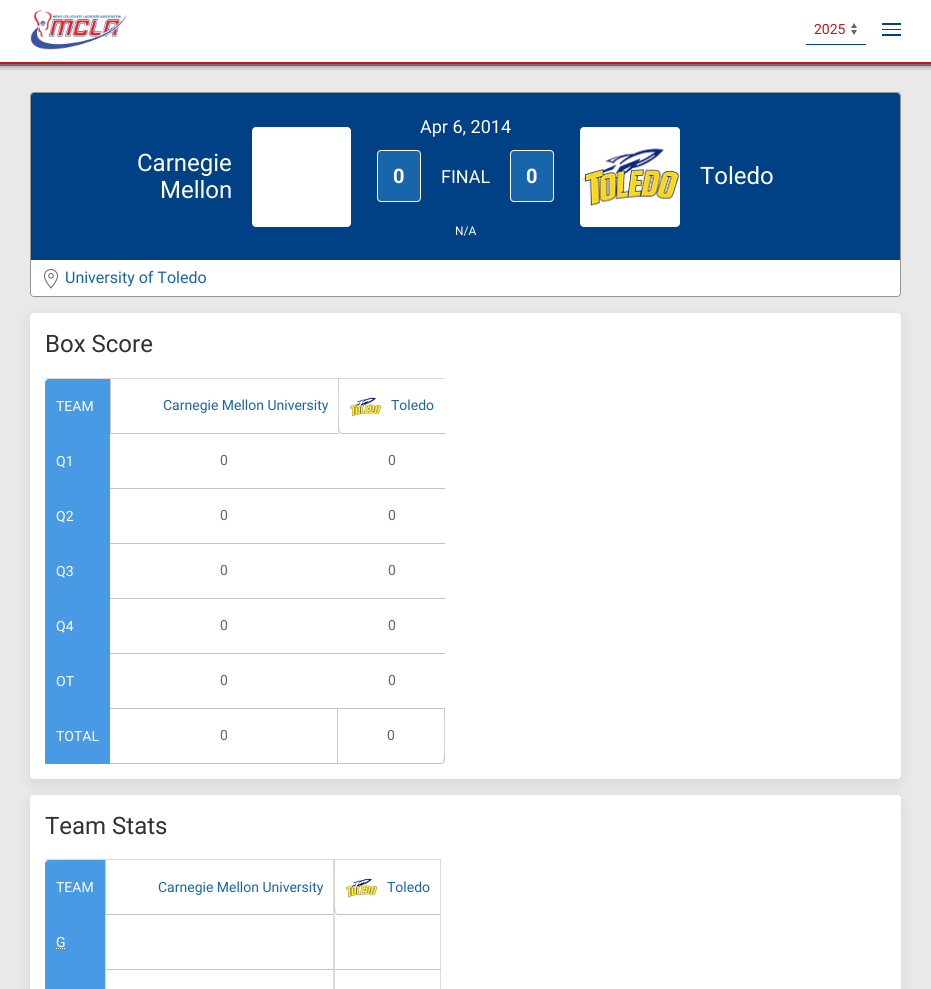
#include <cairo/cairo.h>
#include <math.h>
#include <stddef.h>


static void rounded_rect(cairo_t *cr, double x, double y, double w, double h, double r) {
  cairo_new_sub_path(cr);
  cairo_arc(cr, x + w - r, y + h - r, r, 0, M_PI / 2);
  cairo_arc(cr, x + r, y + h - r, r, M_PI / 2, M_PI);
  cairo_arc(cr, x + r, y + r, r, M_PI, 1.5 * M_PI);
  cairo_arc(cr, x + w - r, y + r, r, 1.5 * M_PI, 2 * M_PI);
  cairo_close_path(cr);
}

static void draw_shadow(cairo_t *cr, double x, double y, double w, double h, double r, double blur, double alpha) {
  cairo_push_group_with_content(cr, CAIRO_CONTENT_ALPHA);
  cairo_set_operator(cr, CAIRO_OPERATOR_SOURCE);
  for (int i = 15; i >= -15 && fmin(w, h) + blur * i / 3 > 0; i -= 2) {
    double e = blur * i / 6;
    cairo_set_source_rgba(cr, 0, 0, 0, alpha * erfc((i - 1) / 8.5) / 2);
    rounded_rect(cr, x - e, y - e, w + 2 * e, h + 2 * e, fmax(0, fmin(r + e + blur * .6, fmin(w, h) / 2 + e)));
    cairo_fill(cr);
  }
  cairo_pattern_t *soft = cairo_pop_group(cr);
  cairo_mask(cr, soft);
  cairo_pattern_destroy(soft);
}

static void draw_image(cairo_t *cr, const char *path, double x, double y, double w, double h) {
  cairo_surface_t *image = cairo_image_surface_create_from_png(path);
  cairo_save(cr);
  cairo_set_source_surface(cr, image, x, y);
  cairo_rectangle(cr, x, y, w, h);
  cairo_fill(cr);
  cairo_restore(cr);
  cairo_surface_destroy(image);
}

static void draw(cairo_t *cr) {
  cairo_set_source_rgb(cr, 1, 1, 1);
  cairo_paint(cr);
  cairo_set_source_rgb(cr, 233 / 255.0, 233 / 255.0, 233 / 255.0);
  cairo_rectangle(cr, 0, 66, 931, 923);
  cairo_fill(cr);
  cairo_set_source_rgb(cr, 147 / 255.0, 147 / 255.0, 147 / 255.0);
  cairo_rectangle(cr, 0, 64, 931, 1);
  cairo_fill(cr);
  cairo_set_source_rgb(cr, 72 / 255.0, 154 / 255.0, 229 / 255.0);
  cairo_rectangle(cr, 0, 65, 931, 1);
  cairo_fill(cr);
  cairo_save(cr);
  cairo_rectangle(cr, 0, 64, 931, 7);
  cairo_clip(cr);
  cairo_set_source_rgb(cr, 0, 0, 0);
  draw_shadow(cr, -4, -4, 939, 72, 0, 2, 0.25);
  cairo_restore(cr);
  cairo_set_source_rgb(cr, 194 / 255.0, 21 / 255.0, 28 / 255.0);
  cairo_rectangle(cr, 0, 62, 931, 2);
  cairo_fill(cr);
  draw_image(cr, "images/1.png", 30, 10, 97, 40);
  draw_image(cr, "images/2.png", 851, 23, 6, 12);
  cairo_set_source_rgb(cr, 0, 65 / 255.0, 133 / 255.0);
  cairo_rectangle(cr, 806, 44, 60, 1);
  cairo_fill(cr);
  cairo_rectangle(cr, 882, 23, 19, 2);
  cairo_fill(cr);
  cairo_rectangle(cr, 882, 29, 19, 1);
  cairo_fill(cr);
  cairo_rectangle(cr, 882, 34, 19, 2);
  cairo_fill(cr);
  rounded_rect(cr, 30.5, 92.5, 870, 204, 3.5);
  cairo_set_source_rgb(cr, 147 / 255.0, 147 / 255.0, 147 / 255.0);
  cairo_set_line_width(cr, 1);
  cairo_stroke(cr);
  cairo_set_source_rgb(cr, 0, 65 / 255.0, 133 / 255.0);
  cairo_new_path(cr);
  cairo_move_to(cr, 34, 93);
  cairo_line_to(cr, 897, 93);
  cairo_curve_to(cr, 898.5, 93, 900, 94.5, 900, 96);
  cairo_line_to(cr, 900, 260);
  cairo_line_to(cr, 31, 260);
  cairo_line_to(cr, 31, 96);
  cairo_curve_to(cr, 31, 94.5, 32.5, 93, 34, 93);
  cairo_close_path(cr);
  cairo_fill(cr);
  cairo_set_source_rgb(cr, 1, 1, 1);
  rounded_rect(cr, 252.5, 127.5, 98, 99, 3.5);
  cairo_fill_preserve(cr);
  cairo_stroke(cr);
  cairo_set_source_rgb(cr, 25 / 255.0, 101 / 255.0, 171 / 255.0);
  rounded_rect(cr, 377.5, 150.5, 43, 51, 3.5);
  cairo_fill_preserve(cr);
  cairo_set_source_rgb(cr, 1, 1, 1);
  cairo_stroke(cr);
  cairo_set_source_rgb(cr, 25 / 255.0, 101 / 255.0, 171 / 255.0);
  rounded_rect(cr, 510.5, 150.5, 43, 51, 3.5);
  cairo_fill_preserve(cr);
  cairo_set_source_rgb(cr, 1, 1, 1);
  cairo_stroke(cr);
  rounded_rect(cr, 580.5, 127.5, 99, 99, 3.5);
  cairo_fill_preserve(cr);
  cairo_stroke(cr);
  draw_image(cr, "images/3.png", 581, 148, 98, 58);
  cairo_new_path(cr);
  cairo_move_to(cr, 31, 260);
  cairo_line_to(cr, 900, 260);
  cairo_line_to(cr, 900, 293);
  cairo_curve_to(cr, 900, 294.5, 898.5, 296, 897, 296);
  cairo_line_to(cr, 34, 296);
  cairo_curve_to(cr, 32.5, 296, 31, 294.5, 31, 293);
  cairo_close_path(cr);
  cairo_fill(cr);
  draw_image(cr, "images/4.png", 44, 269, 14, 20);
  cairo_set_source_rgb(cr, 0, 0, 0);
  draw_shadow(cr, 30, 318, 871, 466, 4, 7.5, 0.08);
  cairo_set_source_rgb(cr, 1, 1, 1);
  rounded_rect(cr, 30, 313, 871, 466, 4);
  cairo_fill(cr);
  cairo_set_source_rgb(cr, 220 / 255.0, 220 / 255.0, 220 / 255.0);
  cairo_rectangle(cr, 45, 378, 400, 1);
  cairo_fill(cr);
  cairo_set_source_rgb(cr, 72 / 255.0, 154 / 255.0, 229 / 255.0);
  cairo_new_path(cr);
  cairo_move_to(cr, 49, 379.5);
  cairo_line_to(cr, 109.5, 379.5);
  cairo_line_to(cr, 109.5, 433.5);
  cairo_line_to(cr, 45.5, 433.5);
  cairo_line_to(cr, 45.5, 383);
  cairo_curve_to(cr, 45.5, 381, 47, 379.5, 49, 379.5);
  cairo_close_path(cr);
  cairo_fill_preserve(cr);
  cairo_stroke(cr);
  cairo_rectangle(cr, 45, 434, 65, 330);
  cairo_fill(cr);
  cairo_set_source_rgb(cr, 196 / 255.0, 196 / 255.0, 196 / 255.0);
  cairo_rectangle(cr, 110, 433, 228, 1);
  cairo_fill(cr);
  cairo_set_source_rgb(cr, 204 / 255.0, 204 / 255.0, 204 / 255.0);
  cairo_rectangle(cr, 110, 379, 1, 55);
  cairo_fill(cr);
  cairo_set_source_rgb(cr, 196 / 255.0, 196 / 255.0, 196 / 255.0);
  cairo_rectangle(cr, 110, 488, 335, 1);
  cairo_fill(cr);
  cairo_rectangle(cr, 110, 543, 335, 1);
  cairo_fill(cr);
  cairo_rectangle(cr, 110, 598, 335, 1);
  cairo_fill(cr);
  cairo_rectangle(cr, 110, 653, 335, 1);
  cairo_fill(cr);
  cairo_rectangle(cr, 110, 708, 335, 1);
  cairo_fill(cr);
  cairo_set_source_rgb(cr, 204 / 255.0, 204 / 255.0, 204 / 255.0);
  cairo_rectangle(cr, 337, 709, 1, 55);
  cairo_fill(cr);
  cairo_set_source_rgb(cr, 196 / 255.0, 196 / 255.0, 196 / 255.0);
  cairo_rectangle(cr, 110, 763, 228, 1);
  cairo_fill(cr);
  cairo_new_path(cr);
  cairo_move_to(cr, 445, 434);
  cairo_line_to(cr, 445, 433);
  cairo_line_to(cr, 342, 433);
  cairo_line_to(cr, 340, 432);
  cairo_line_to(cr, 339, 433);
  cairo_line_to(cr, 342, 434);
  cairo_close_path(cr);
  cairo_fill(cr);
  cairo_set_source_rgb(cr, 204 / 255.0, 204 / 255.0, 204 / 255.0);
  cairo_new_path(cr);
  cairo_move_to(cr, 338, 379);
  cairo_line_to(cr, 339, 379);
  cairo_curve_to(cr, 339, 385, 338, 430, 340, 432);
  cairo_line_to(cr, 339, 433);
  cairo_line_to(cr, 338, 430);
  cairo_close_path(cr);
  cairo_fill(cr);
  draw_image(cr, "images/5.png", 350, 397, 31, 20);
  cairo_new_path(cr);
  cairo_move_to(cr, 445, 709);
  cairo_line_to(cr, 444, 709);
  cairo_curve_to(cr, 444, 715, 445, 760, 443, 762);
  cairo_line_to(cr, 444, 763);
  cairo_line_to(cr, 445, 760);
  cairo_close_path(cr);
  cairo_fill(cr);
  cairo_set_source_rgb(cr, 196 / 255.0, 196 / 255.0, 196 / 255.0);
  cairo_new_path(cr);
  cairo_move_to(cr, 338, 763);
  cairo_line_to(cr, 338, 764);
  cairo_line_to(cr, 441, 764);
  cairo_line_to(cr, 444, 763);
  cairo_line_to(cr, 443, 762);
  cairo_line_to(cr, 441, 763);
  cairo_close_path(cr);
  cairo_fill(cr);
  cairo_set_source_rgb(cr, 0, 0, 0);
  draw_shadow(cr, 30, 800, 871, 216, 4, 7.5, 0.08);
  cairo_set_source_rgb(cr, 1, 1, 1);
  rounded_rect(cr, 30, 795, 871, 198, 4);
  cairo_fill(cr);
  cairo_set_source_rgb(cr, 220 / 255.0, 220 / 255.0, 220 / 255.0);
  cairo_rectangle(cr, 45, 859, 396, 1);
  cairo_fill(cr);
  cairo_set_source_rgb(cr, 72 / 255.0, 154 / 255.0, 229 / 255.0);
  cairo_new_path(cr);
  cairo_move_to(cr, 49, 860.5);
  cairo_line_to(cr, 104.5, 860.5);
  cairo_line_to(cr, 104.5, 914.5);
  cairo_line_to(cr, 45.5, 914.5);
  cairo_line_to(cr, 45.5, 864);
  cairo_curve_to(cr, 45.5, 862, 47, 860.5, 49, 860.5);
  cairo_close_path(cr);
  cairo_fill_preserve(cr);
  cairo_stroke(cr);
  cairo_rectangle(cr, 45, 915, 60, 74);
  cairo_fill(cr);
  cairo_new_path(cr);
  cairo_move_to(cr, 56, 948.5);
  cairo_line_to(cr, 65.5, 948.5);
  cairo_set_source_rgb(cr, 1, 1, 1);
  cairo_set_dash(cr, (double[]){1, 1}, 2, 0);
  cairo_stroke(cr);
  cairo_set_source_rgb(cr, 220 / 255.0, 220 / 255.0, 220 / 255.0);
  cairo_rectangle(cr, 333, 860, 1, 129);
  cairo_fill(cr);
  cairo_set_source_rgb(cr, 196 / 255.0, 196 / 255.0, 196 / 255.0);
  cairo_rectangle(cr, 105, 914, 229, 1);
  cairo_fill(cr);
  cairo_set_source_rgb(cr, 204 / 255.0, 204 / 255.0, 204 / 255.0);
  cairo_rectangle(cr, 105, 860, 1, 55);
  cairo_fill(cr);
  cairo_set_source_rgb(cr, 196 / 255.0, 196 / 255.0, 196 / 255.0);
  cairo_rectangle(cr, 105, 969, 229, 1);
  cairo_fill(cr);
  cairo_set_source_rgb(cr, 220 / 255.0, 220 / 255.0, 220 / 255.0);
  cairo_rectangle(cr, 105, 915, 1, 74);
  cairo_fill(cr);
  cairo_new_path(cr);
  cairo_move_to(cr, 441, 860);
  cairo_line_to(cr, 440, 860);
  cairo_line_to(cr, 440, 914);
  cairo_line_to(cr, 441, 915);
  cairo_close_path(cr);
  cairo_fill(cr);
  cairo_set_source_rgb(cr, 196 / 255.0, 196 / 255.0, 196 / 255.0);
  cairo_new_path(cr);
  cairo_move_to(cr, 441, 915);
  cairo_line_to(cr, 440, 914);
  cairo_line_to(cr, 338, 914);
  cairo_line_to(cr, 336, 913);
  cairo_line_to(cr, 335, 914);
  cairo_line_to(cr, 338, 915);
  cairo_close_path(cr);
  cairo_fill(cr);
  cairo_set_source_rgb(cr, 204 / 255.0, 204 / 255.0, 204 / 255.0);
  cairo_new_path(cr);
  cairo_move_to(cr, 334, 860);
  cairo_line_to(cr, 335, 860);
  cairo_curve_to(cr, 335, 866, 334, 911, 336, 913);
  cairo_line_to(cr, 335, 914);
  cairo_line_to(cr, 334, 911);
  cairo_close_path(cr);
  cairo_fill(cr);
  draw_image(cr, "images/5.png", 346, 878, 31, 20);
  cairo_set_source_rgb(cr, 220 / 255.0, 220 / 255.0, 220 / 255.0);
  cairo_rectangle(cr, 440, 915, 1, 74);
  cairo_fill(cr);
  cairo_set_source_rgb(cr, 196 / 255.0, 196 / 255.0, 196 / 255.0);
  cairo_rectangle(cr, 334, 969, 107, 1);
  cairo_fill(cr);
  cairo_set_source_rgb(cr, 220 / 255.0, 220 / 255.0, 220 / 255.0);
  cairo_rectangle(cr, 334, 915, 1, 74);
  cairo_fill(cr);
  cairo_select_font_face(cr, "Roboto", CAIRO_FONT_SLANT_NORMAL, CAIRO_FONT_WEIGHT_NORMAL);
  cairo_set_font_size(cr, 14);
  cairo_set_source_rgb(cr, 194 / 255.0, 21 / 255.0, 28 / 255.0);
  cairo_move_to(cr, 814, 34);
  cairo_show_text(cr, "2025");
  cairo_set_font_size(cr, 24);
  cairo_set_source_rgb(cr, 1, 1, 1);
  cairo_move_to(cr, 137, 171);
  cairo_show_text(cr, "Carnegie");
  cairo_move_to(cr, 160, 198);
  cairo_show_text(cr, "Mellon");
  cairo_set_font_size(cr, 18);
  cairo_move_to(cr, 420, 133);
  cairo_show_text(cr, "Apr 6, 2014");
  cairo_select_font_face(cr, "Roboto", CAIRO_FONT_SLANT_NORMAL, CAIRO_FONT_WEIGHT_BOLD);
  cairo_set_font_size(cr, 20);
  cairo_move_to(cr, 393, 183);
  cairo_show_text(cr, "0");
  cairo_select_font_face(cr, "Roboto", CAIRO_FONT_SLANT_NORMAL, CAIRO_FONT_WEIGHT_NORMAL);
  cairo_set_font_size(cr, 18);
  cairo_move_to(cr, 441, 183);
  cairo_show_text(cr, "FINAL");
  cairo_select_font_face(cr, "Roboto", CAIRO_FONT_SLANT_NORMAL, CAIRO_FONT_WEIGHT_BOLD);
  cairo_set_font_size(cr, 20);
  cairo_move_to(cr, 526, 183);
  cairo_show_text(cr, "0");
  cairo_select_font_face(cr, "Roboto", CAIRO_FONT_SLANT_NORMAL, CAIRO_FONT_WEIGHT_NORMAL);
  cairo_set_font_size(cr, 12);
  cairo_move_to(cr, 455, 235);
  cairo_show_text(cr, "N/A");
  cairo_set_font_size(cr, 24);
  cairo_move_to(cr, 700, 184);
  cairo_show_text(cr, "Toledo");
  cairo_set_font_size(cr, 16);
  cairo_set_source_rgb(cr, 25 / 255.0, 101 / 255.0, 171 / 255.0);
  cairo_move_to(cr, 65, 283);
  cairo_show_text(cr, "University of Toledo");
  cairo_set_font_size(cr, 24);
  cairo_set_source_rgb(cr, 49 / 255.0, 49 / 255.0, 49 / 255.0);
  cairo_move_to(cr, 45, 352);
  cairo_show_text(cr, "Box Score");
  cairo_set_font_size(cr, 14);
  cairo_set_source_rgb(cr, 1, 1, 1);
  cairo_move_to(cr, 56, 411);
  cairo_show_text(cr, "TEAM");
  cairo_move_to(cr, 56, 466);
  cairo_show_text(cr, "Q1");
  cairo_move_to(cr, 56, 521);
  cairo_show_text(cr, "Q2");
  cairo_move_to(cr, 56, 576);
  cairo_show_text(cr, "Q3");
  cairo_move_to(cr, 56, 631);
  cairo_show_text(cr, "Q4");
  cairo_move_to(cr, 56, 686);
  cairo_show_text(cr, "OT");
  cairo_move_to(cr, 56, 741);
  cairo_show_text(cr, "TOTAL");
  cairo_set_source_rgb(cr, 25 / 255.0, 101 / 255.0, 171 / 255.0);
  cairo_move_to(cr, 163, 410);
  cairo_show_text(cr, "Carnegie Mellon University");
  cairo_set_source_rgb(cr, 102 / 255.0, 102 / 255.0, 102 / 255.0);
  cairo_move_to(cr, 220, 465);
  cairo_show_text(cr, "0");
  cairo_move_to(cr, 220, 520);
  cairo_show_text(cr, "0");
  cairo_move_to(cr, 220, 575);
  cairo_show_text(cr, "0");
  cairo_move_to(cr, 220, 630);
  cairo_show_text(cr, "0");
  cairo_move_to(cr, 220, 685);
  cairo_show_text(cr, "0");
  cairo_move_to(cr, 220, 740);
  cairo_show_text(cr, "0");
  cairo_set_source_rgb(cr, 25 / 255.0, 101 / 255.0, 171 / 255.0);
  cairo_move_to(cr, 391, 410);
  cairo_show_text(cr, "Toledo");
  cairo_set_source_rgb(cr, 102 / 255.0, 102 / 255.0, 102 / 255.0);
  cairo_move_to(cr, 388, 465);
  cairo_show_text(cr, "0");
  cairo_move_to(cr, 388, 520);
  cairo_show_text(cr, "0");
  cairo_move_to(cr, 388, 575);
  cairo_show_text(cr, "0");
  cairo_move_to(cr, 388, 630);
  cairo_show_text(cr, "0");
  cairo_move_to(cr, 388, 685);
  cairo_show_text(cr, "0");
  cairo_move_to(cr, 387, 740);
  cairo_show_text(cr, "0");
  cairo_set_font_size(cr, 24);
  cairo_set_source_rgb(cr, 49 / 255.0, 49 / 255.0, 49 / 255.0);
  cairo_move_to(cr, 45, 834);
  cairo_show_text(cr, "Team Stats");
  cairo_set_font_size(cr, 14);
  cairo_set_source_rgb(cr, 1, 1, 1);
  cairo_move_to(cr, 56, 892);
  cairo_show_text(cr, "TEAM");
  cairo_move_to(cr, 56, 947);
  cairo_show_text(cr, "G");
  cairo_set_source_rgb(cr, 25 / 255.0, 101 / 255.0, 171 / 255.0);
  cairo_move_to(cr, 158, 892);
  cairo_show_text(cr, "Carnegie Mellon University");
  cairo_move_to(cr, 387, 892);
  cairo_show_text(cr, "Toledo");
}

int main(void) {
  cairo_surface_t *surface = cairo_image_surface_create(CAIRO_FORMAT_RGB24, 931, 989);
  cairo_t *cr = cairo_create(surface);
  cairo_font_options_t *options = cairo_font_options_create();
  cairo_font_options_set_hint_metrics(options, CAIRO_HINT_METRICS_OFF);
  cairo_font_options_set_hint_style(options, CAIRO_HINT_STYLE_NONE);
  cairo_set_font_options(cr, options);
  cairo_set_miter_limit(cr, 4);
  draw(cr);
  cairo_surface_write_to_png(surface, "out.png");
  cairo_font_options_destroy(options);
  cairo_destroy(cr);
  cairo_surface_destroy(surface);
  return 0;
}
